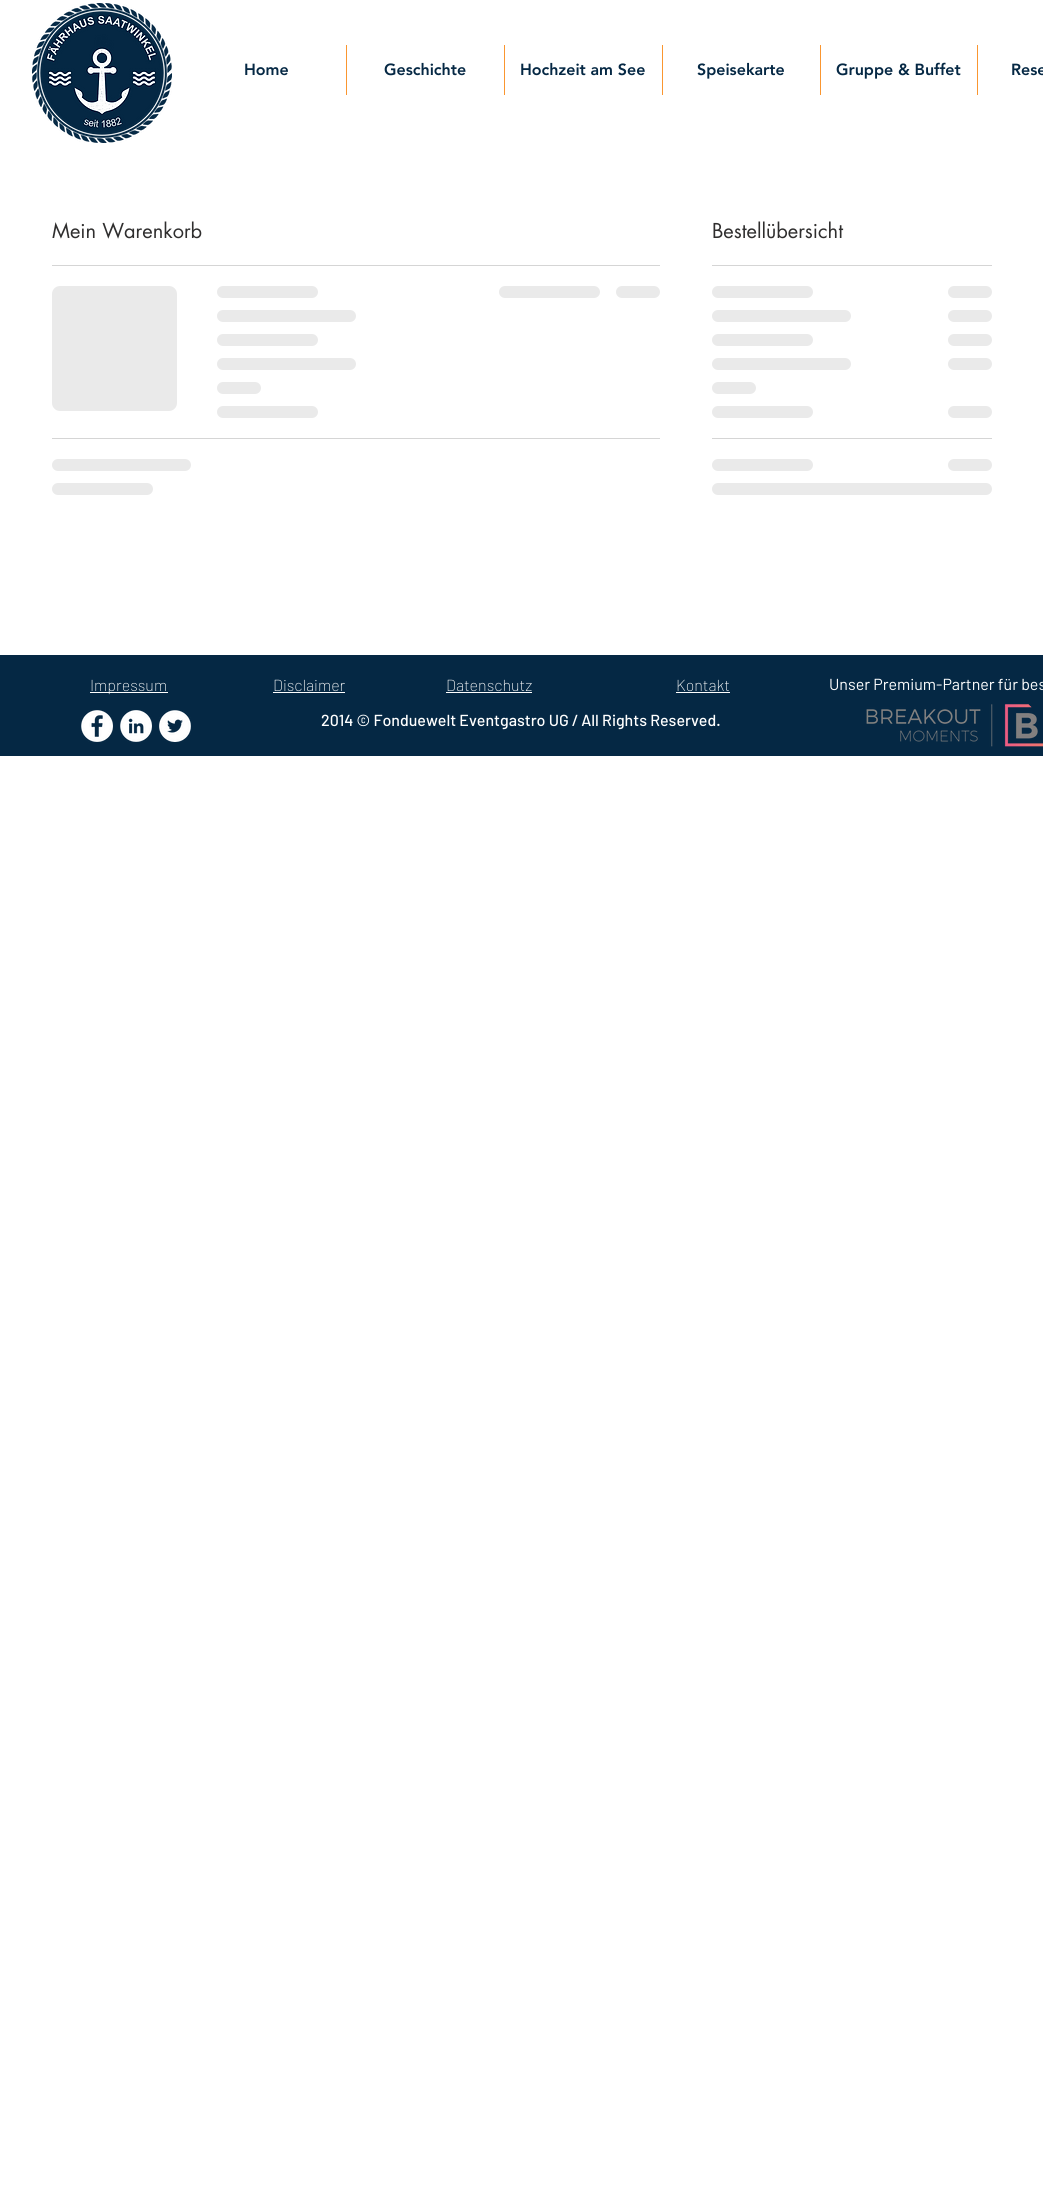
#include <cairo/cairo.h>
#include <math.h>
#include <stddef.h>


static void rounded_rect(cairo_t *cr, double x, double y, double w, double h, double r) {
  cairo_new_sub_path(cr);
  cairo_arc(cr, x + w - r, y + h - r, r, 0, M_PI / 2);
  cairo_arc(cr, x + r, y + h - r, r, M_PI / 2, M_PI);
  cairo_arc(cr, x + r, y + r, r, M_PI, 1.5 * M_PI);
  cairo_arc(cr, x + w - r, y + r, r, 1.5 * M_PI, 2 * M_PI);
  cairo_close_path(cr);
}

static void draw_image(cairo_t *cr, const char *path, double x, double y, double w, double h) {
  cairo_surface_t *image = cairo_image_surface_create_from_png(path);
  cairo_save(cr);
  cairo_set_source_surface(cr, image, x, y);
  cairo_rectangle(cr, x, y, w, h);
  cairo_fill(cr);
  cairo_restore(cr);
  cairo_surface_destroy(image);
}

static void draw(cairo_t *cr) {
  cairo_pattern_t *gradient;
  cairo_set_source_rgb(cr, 1, 1, 1);
  cairo_paint(cr);
  draw_image(cr, "images/1.png", 32, 3, 140, 140);
  cairo_set_source_rgb(cr, 250 / 255.0, 150 / 255.0, 48 / 255.0);
  cairo_rectangle(cr, 346, 45, 1, 50);
  cairo_fill(cr);
  cairo_rectangle(cr, 504, 45, 1, 50);
  cairo_fill(cr);
  cairo_rectangle(cr, 662, 45, 1, 50);
  cairo_fill(cr);
  cairo_rectangle(cr, 820, 45, 1, 50);
  cairo_fill(cr);
  cairo_rectangle(cr, 977, 45, 1, 50);
  cairo_fill(cr);
  cairo_set_source_rgb(cr, 213 / 255.0, 213 / 255.0, 213 / 255.0);
  cairo_rectangle(cr, 52, 265, 608, 1);
  cairo_fill(cr);
  gradient = cairo_pattern_create_linear(52, 349, 552, 349);
  cairo_pattern_add_color_stop_rgba(gradient, 0.25, 234 / 255.0, 234 / 255.0, 234 / 255.0, 1);
  cairo_pattern_add_color_stop_rgba(gradient, 0.37, 213 / 255.0, 213 / 255.0, 213 / 255.0, 1);
  cairo_pattern_add_color_stop_rgba(gradient, 0.63, 234 / 255.0, 234 / 255.0, 234 / 255.0, 1);
  cairo_set_source(cr, gradient);
  cairo_pattern_destroy(gradient);
  rounded_rect(cr, 52, 286, 125, 125, 8);
  cairo_fill(cr);
  gradient = cairo_pattern_create_linear(217, 292, 621, 292);
  cairo_pattern_add_color_stop_rgba(gradient, 0.25, 234 / 255.0, 234 / 255.0, 234 / 255.0, 1);
  cairo_pattern_add_color_stop_rgba(gradient, 0.37, 213 / 255.0, 213 / 255.0, 213 / 255.0, 1);
  cairo_pattern_add_color_stop_rgba(gradient, 0.63, 234 / 255.0, 234 / 255.0, 234 / 255.0, 1);
  cairo_set_source(cr, gradient);
  cairo_pattern_destroy(gradient);
  rounded_rect(cr, 217, 286, 101, 12, 6);
  cairo_fill(cr);
  gradient = cairo_pattern_create_linear(217, 316, 773, 316);
  cairo_pattern_add_color_stop_rgba(gradient, 0.25, 234 / 255.0, 234 / 255.0, 234 / 255.0, 1);
  cairo_pattern_add_color_stop_rgba(gradient, 0.37, 213 / 255.0, 213 / 255.0, 213 / 255.0, 1);
  cairo_pattern_add_color_stop_rgba(gradient, 0.63, 234 / 255.0, 234 / 255.0, 234 / 255.0, 1);
  cairo_set_source(cr, gradient);
  cairo_pattern_destroy(gradient);
  rounded_rect(cr, 217, 310, 139, 12, 6);
  cairo_fill(cr);
  gradient = cairo_pattern_create_linear(217, 340, 621, 340);
  cairo_pattern_add_color_stop_rgba(gradient, 0.25, 234 / 255.0, 234 / 255.0, 234 / 255.0, 1);
  cairo_pattern_add_color_stop_rgba(gradient, 0.37, 213 / 255.0, 213 / 255.0, 213 / 255.0, 1);
  cairo_pattern_add_color_stop_rgba(gradient, 0.63, 234 / 255.0, 234 / 255.0, 234 / 255.0, 1);
  cairo_set_source(cr, gradient);
  cairo_pattern_destroy(gradient);
  rounded_rect(cr, 217, 334, 101, 12, 6);
  cairo_fill(cr);
  gradient = cairo_pattern_create_linear(217, 364, 773, 364);
  cairo_pattern_add_color_stop_rgba(gradient, 0.25, 234 / 255.0, 234 / 255.0, 234 / 255.0, 1);
  cairo_pattern_add_color_stop_rgba(gradient, 0.37, 213 / 255.0, 213 / 255.0, 213 / 255.0, 1);
  cairo_pattern_add_color_stop_rgba(gradient, 0.63, 234 / 255.0, 234 / 255.0, 234 / 255.0, 1);
  cairo_set_source(cr, gradient);
  cairo_pattern_destroy(gradient);
  rounded_rect(cr, 217, 358, 139, 12, 6);
  cairo_fill(cr);
  gradient = cairo_pattern_create_linear(217, 388, 393, 388);
  cairo_pattern_add_color_stop_rgba(gradient, 0.25, 234 / 255.0, 234 / 255.0, 234 / 255.0, 1);
  cairo_pattern_add_color_stop_rgba(gradient, 0.37, 213 / 255.0, 213 / 255.0, 213 / 255.0, 1);
  cairo_pattern_add_color_stop_rgba(gradient, 0.63, 234 / 255.0, 234 / 255.0, 234 / 255.0, 1);
  cairo_set_source(cr, gradient);
  cairo_pattern_destroy(gradient);
  rounded_rect(cr, 217, 382, 44, 12, 6);
  cairo_fill(cr);
  gradient = cairo_pattern_create_linear(217, 412, 621, 412);
  cairo_pattern_add_color_stop_rgba(gradient, 0.25, 234 / 255.0, 234 / 255.0, 234 / 255.0, 1);
  cairo_pattern_add_color_stop_rgba(gradient, 0.37, 213 / 255.0, 213 / 255.0, 213 / 255.0, 1);
  cairo_pattern_add_color_stop_rgba(gradient, 0.63, 234 / 255.0, 234 / 255.0, 234 / 255.0, 1);
  cairo_set_source(cr, gradient);
  cairo_pattern_destroy(gradient);
  rounded_rect(cr, 217, 406, 101, 12, 6);
  cairo_fill(cr);
  gradient = cairo_pattern_create_linear(499, 292, 903, 292);
  cairo_pattern_add_color_stop_rgba(gradient, 0.25, 234 / 255.0, 234 / 255.0, 234 / 255.0, 1);
  cairo_pattern_add_color_stop_rgba(gradient, 0.37, 213 / 255.0, 213 / 255.0, 213 / 255.0, 1);
  cairo_pattern_add_color_stop_rgba(gradient, 0.63, 234 / 255.0, 234 / 255.0, 234 / 255.0, 1);
  cairo_set_source(cr, gradient);
  cairo_pattern_destroy(gradient);
  rounded_rect(cr, 499, 286, 101, 12, 6);
  cairo_fill(cr);
  gradient = cairo_pattern_create_linear(616, 292, 792, 292);
  cairo_pattern_add_color_stop_rgba(gradient, 0.25, 234 / 255.0, 234 / 255.0, 234 / 255.0, 1);
  cairo_pattern_add_color_stop_rgba(gradient, 0.37, 213 / 255.0, 213 / 255.0, 213 / 255.0, 1);
  cairo_pattern_add_color_stop_rgba(gradient, 0.63, 234 / 255.0, 234 / 255.0, 234 / 255.0, 1);
  cairo_set_source(cr, gradient);
  cairo_pattern_destroy(gradient);
  rounded_rect(cr, 616, 286, 44, 12, 6);
  cairo_fill(cr);
  cairo_set_source_rgb(cr, 213 / 255.0, 213 / 255.0, 213 / 255.0);
  cairo_rectangle(cr, 52, 438, 608, 1);
  cairo_fill(cr);
  gradient = cairo_pattern_create_linear(52, 465, 608, 465);
  cairo_pattern_add_color_stop_rgba(gradient, 0.25, 234 / 255.0, 234 / 255.0, 234 / 255.0, 1);
  cairo_pattern_add_color_stop_rgba(gradient, 0.37, 213 / 255.0, 213 / 255.0, 213 / 255.0, 1);
  cairo_pattern_add_color_stop_rgba(gradient, 0.63, 234 / 255.0, 234 / 255.0, 234 / 255.0, 1);
  cairo_set_source(cr, gradient);
  cairo_pattern_destroy(gradient);
  rounded_rect(cr, 52, 459, 139, 12, 6);
  cairo_fill(cr);
  gradient = cairo_pattern_create_linear(52, 489, 456, 489);
  cairo_pattern_add_color_stop_rgba(gradient, 0.25, 234 / 255.0, 234 / 255.0, 234 / 255.0, 1);
  cairo_pattern_add_color_stop_rgba(gradient, 0.37, 213 / 255.0, 213 / 255.0, 213 / 255.0, 1);
  cairo_pattern_add_color_stop_rgba(gradient, 0.63, 234 / 255.0, 234 / 255.0, 234 / 255.0, 1);
  cairo_set_source(cr, gradient);
  cairo_pattern_destroy(gradient);
  rounded_rect(cr, 52, 483, 101, 12, 6);
  cairo_fill(cr);
  cairo_set_source_rgb(cr, 213 / 255.0, 213 / 255.0, 213 / 255.0);
  cairo_rectangle(cr, 712, 265, 280, 1);
  cairo_fill(cr);
  gradient = cairo_pattern_create_linear(712, 292, 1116, 292);
  cairo_pattern_add_color_stop_rgba(gradient, 0.25, 234 / 255.0, 234 / 255.0, 234 / 255.0, 1);
  cairo_pattern_add_color_stop_rgba(gradient, 0.37, 213 / 255.0, 213 / 255.0, 213 / 255.0, 1);
  cairo_pattern_add_color_stop_rgba(gradient, 0.63, 234 / 255.0, 234 / 255.0, 234 / 255.0, 1);
  cairo_set_source(cr, gradient);
  cairo_pattern_destroy(gradient);
  rounded_rect(cr, 712, 286, 101, 12, 6);
  cairo_fill(cr);
  gradient = cairo_pattern_create_linear(948, 292, 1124, 292);
  cairo_pattern_add_color_stop_rgba(gradient, 0.25, 234 / 255.0, 234 / 255.0, 234 / 255.0, 1);
  cairo_pattern_add_color_stop_rgba(gradient, 0.37, 213 / 255.0, 213 / 255.0, 213 / 255.0, 1);
  cairo_pattern_add_color_stop_rgba(gradient, 0.63, 234 / 255.0, 234 / 255.0, 234 / 255.0, 1);
  cairo_set_source(cr, gradient);
  cairo_pattern_destroy(gradient);
  rounded_rect(cr, 948, 286, 44, 12, 6);
  cairo_fill(cr);
  gradient = cairo_pattern_create_linear(712, 316, 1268, 316);
  cairo_pattern_add_color_stop_rgba(gradient, 0.25, 234 / 255.0, 234 / 255.0, 234 / 255.0, 1);
  cairo_pattern_add_color_stop_rgba(gradient, 0.37, 213 / 255.0, 213 / 255.0, 213 / 255.0, 1);
  cairo_pattern_add_color_stop_rgba(gradient, 0.63, 234 / 255.0, 234 / 255.0, 234 / 255.0, 1);
  cairo_set_source(cr, gradient);
  cairo_pattern_destroy(gradient);
  rounded_rect(cr, 712, 310, 139, 12, 6);
  cairo_fill(cr);
  gradient = cairo_pattern_create_linear(948, 316, 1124, 316);
  cairo_pattern_add_color_stop_rgba(gradient, 0.25, 234 / 255.0, 234 / 255.0, 234 / 255.0, 1);
  cairo_pattern_add_color_stop_rgba(gradient, 0.37, 213 / 255.0, 213 / 255.0, 213 / 255.0, 1);
  cairo_pattern_add_color_stop_rgba(gradient, 0.63, 234 / 255.0, 234 / 255.0, 234 / 255.0, 1);
  cairo_set_source(cr, gradient);
  cairo_pattern_destroy(gradient);
  rounded_rect(cr, 948, 310, 44, 12, 6);
  cairo_fill(cr);
  gradient = cairo_pattern_create_linear(712, 340, 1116, 340);
  cairo_pattern_add_color_stop_rgba(gradient, 0.25, 234 / 255.0, 234 / 255.0, 234 / 255.0, 1);
  cairo_pattern_add_color_stop_rgba(gradient, 0.37, 213 / 255.0, 213 / 255.0, 213 / 255.0, 1);
  cairo_pattern_add_color_stop_rgba(gradient, 0.63, 234 / 255.0, 234 / 255.0, 234 / 255.0, 1);
  cairo_set_source(cr, gradient);
  cairo_pattern_destroy(gradient);
  rounded_rect(cr, 712, 334, 101, 12, 6);
  cairo_fill(cr);
  gradient = cairo_pattern_create_linear(948, 340, 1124, 340);
  cairo_pattern_add_color_stop_rgba(gradient, 0.25, 234 / 255.0, 234 / 255.0, 234 / 255.0, 1);
  cairo_pattern_add_color_stop_rgba(gradient, 0.37, 213 / 255.0, 213 / 255.0, 213 / 255.0, 1);
  cairo_pattern_add_color_stop_rgba(gradient, 0.63, 234 / 255.0, 234 / 255.0, 234 / 255.0, 1);
  cairo_set_source(cr, gradient);
  cairo_pattern_destroy(gradient);
  rounded_rect(cr, 948, 334, 44, 12, 6);
  cairo_fill(cr);
  gradient = cairo_pattern_create_linear(712, 364, 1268, 364);
  cairo_pattern_add_color_stop_rgba(gradient, 0.25, 234 / 255.0, 234 / 255.0, 234 / 255.0, 1);
  cairo_pattern_add_color_stop_rgba(gradient, 0.37, 213 / 255.0, 213 / 255.0, 213 / 255.0, 1);
  cairo_pattern_add_color_stop_rgba(gradient, 0.63, 234 / 255.0, 234 / 255.0, 234 / 255.0, 1);
  cairo_set_source(cr, gradient);
  cairo_pattern_destroy(gradient);
  rounded_rect(cr, 712, 358, 139, 12, 6);
  cairo_fill(cr);
  gradient = cairo_pattern_create_linear(948, 364, 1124, 364);
  cairo_pattern_add_color_stop_rgba(gradient, 0.25, 234 / 255.0, 234 / 255.0, 234 / 255.0, 1);
  cairo_pattern_add_color_stop_rgba(gradient, 0.37, 213 / 255.0, 213 / 255.0, 213 / 255.0, 1);
  cairo_pattern_add_color_stop_rgba(gradient, 0.63, 234 / 255.0, 234 / 255.0, 234 / 255.0, 1);
  cairo_set_source(cr, gradient);
  cairo_pattern_destroy(gradient);
  rounded_rect(cr, 948, 358, 44, 12, 6);
  cairo_fill(cr);
  gradient = cairo_pattern_create_linear(712, 388, 888, 388);
  cairo_pattern_add_color_stop_rgba(gradient, 0.25, 234 / 255.0, 234 / 255.0, 234 / 255.0, 1);
  cairo_pattern_add_color_stop_rgba(gradient, 0.37, 213 / 255.0, 213 / 255.0, 213 / 255.0, 1);
  cairo_pattern_add_color_stop_rgba(gradient, 0.63, 234 / 255.0, 234 / 255.0, 234 / 255.0, 1);
  cairo_set_source(cr, gradient);
  cairo_pattern_destroy(gradient);
  rounded_rect(cr, 712, 382, 44, 12, 6);
  cairo_fill(cr);
  gradient = cairo_pattern_create_linear(712, 412, 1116, 412);
  cairo_pattern_add_color_stop_rgba(gradient, 0.25, 234 / 255.0, 234 / 255.0, 234 / 255.0, 1);
  cairo_pattern_add_color_stop_rgba(gradient, 0.37, 213 / 255.0, 213 / 255.0, 213 / 255.0, 1);
  cairo_pattern_add_color_stop_rgba(gradient, 0.63, 234 / 255.0, 234 / 255.0, 234 / 255.0, 1);
  cairo_set_source(cr, gradient);
  cairo_pattern_destroy(gradient);
  rounded_rect(cr, 712, 406, 101, 12, 6);
  cairo_fill(cr);
  gradient = cairo_pattern_create_linear(948, 412, 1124, 412);
  cairo_pattern_add_color_stop_rgba(gradient, 0.25, 234 / 255.0, 234 / 255.0, 234 / 255.0, 1);
  cairo_pattern_add_color_stop_rgba(gradient, 0.37, 213 / 255.0, 213 / 255.0, 213 / 255.0, 1);
  cairo_pattern_add_color_stop_rgba(gradient, 0.63, 234 / 255.0, 234 / 255.0, 234 / 255.0, 1);
  cairo_set_source(cr, gradient);
  cairo_pattern_destroy(gradient);
  rounded_rect(cr, 948, 406, 44, 12, 6);
  cairo_fill(cr);
  cairo_set_source_rgb(cr, 213 / 255.0, 213 / 255.0, 213 / 255.0);
  cairo_rectangle(cr, 712, 438, 280, 1);
  cairo_fill(cr);
  gradient = cairo_pattern_create_linear(712, 465, 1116, 465);
  cairo_pattern_add_color_stop_rgba(gradient, 0.25, 234 / 255.0, 234 / 255.0, 234 / 255.0, 1);
  cairo_pattern_add_color_stop_rgba(gradient, 0.37, 213 / 255.0, 213 / 255.0, 213 / 255.0, 1);
  cairo_pattern_add_color_stop_rgba(gradient, 0.63, 234 / 255.0, 234 / 255.0, 234 / 255.0, 1);
  cairo_set_source(cr, gradient);
  cairo_pattern_destroy(gradient);
  rounded_rect(cr, 712, 459, 101, 12, 6);
  cairo_fill(cr);
  gradient = cairo_pattern_create_linear(948, 465, 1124, 465);
  cairo_pattern_add_color_stop_rgba(gradient, 0.25, 234 / 255.0, 234 / 255.0, 234 / 255.0, 1);
  cairo_pattern_add_color_stop_rgba(gradient, 0.37, 213 / 255.0, 213 / 255.0, 213 / 255.0, 1);
  cairo_pattern_add_color_stop_rgba(gradient, 0.63, 234 / 255.0, 234 / 255.0, 234 / 255.0, 1);
  cairo_set_source(cr, gradient);
  cairo_pattern_destroy(gradient);
  rounded_rect(cr, 948, 459, 44, 12, 6);
  cairo_fill(cr);
  gradient = cairo_pattern_create_linear(712, 489, 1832, 489);
  cairo_pattern_add_color_stop_rgba(gradient, 0.25, 234 / 255.0, 234 / 255.0, 234 / 255.0, 1);
  cairo_pattern_add_color_stop_rgba(gradient, 0.37, 213 / 255.0, 213 / 255.0, 213 / 255.0, 1);
  cairo_pattern_add_color_stop_rgba(gradient, 0.63, 234 / 255.0, 234 / 255.0, 234 / 255.0, 1);
  cairo_set_source(cr, gradient);
  cairo_pattern_destroy(gradient);
  rounded_rect(cr, 712, 483, 280, 12, 6);
  cairo_fill(cr);
  cairo_set_source_rgb(cr, 5 / 255.0, 40 / 255.0, 68 / 255.0);
  cairo_rectangle(cr, 0, 655, 1043, 101);
  cairo_fill(cr);
  cairo_set_source_rgb(cr, 1, 1, 1);
  cairo_rectangle(cr, 90, 692, 78, 1);
  cairo_fill(cr);
  cairo_rectangle(cr, 273, 692, 72, 1);
  cairo_fill(cr);
  cairo_rectangle(cr, 446, 692, 86, 1);
  cairo_fill(cr);
  cairo_rectangle(cr, 676, 692, 54, 1);
  cairo_fill(cr);
  draw_image(cr, "images/2.png", 81, 710, 32, 32);
  draw_image(cr, "images/3.png", 120, 710, 32, 32);
  draw_image(cr, "images/4.png", 159, 710, 32, 32);
  draw_image(cr, "images/5.png", 866, 704, 177, 43);
  cairo_select_font_face(cr, "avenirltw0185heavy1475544 Black", CAIRO_FONT_SLANT_NORMAL, CAIRO_FONT_WEIGHT_NORMAL);
  cairo_set_font_size(cr, 16);
  cairo_set_source_rgb(cr, 5 / 255.0, 40 / 255.0, 68 / 255.0);
  cairo_move_to(cr, 244, 75);
  cairo_show_text(cr, "Home");
  cairo_move_to(cr, 384, 75);
  cairo_show_text(cr, "Geschichte");
  cairo_move_to(cr, 520, 75);
  cairo_show_text(cr, "Hochzeit am See");
  cairo_move_to(cr, 697, 75);
  cairo_show_text(cr, "Speisekarte");
  cairo_move_to(cr, 836, 75);
  cairo_show_text(cr, "Gruppe & Buffet");
  cairo_move_to(cr, 1011, 75);
  cairo_show_text(cr, "Rese");
  cairo_select_font_face(cr, "futura", CAIRO_FONT_SLANT_NORMAL, CAIRO_FONT_WEIGHT_NORMAL);
  cairo_set_font_size(cr, 20);
  cairo_set_source_rgb(cr, 47 / 255.0, 46 / 255.0, 46 / 255.0);
  cairo_move_to(cr, 52, 238);
  cairo_show_text(cr, "Mein Warenkorb");
  cairo_move_to(cr, 712, 238);
  cairo_show_text(cr, "Bestellübersicht");
  cairo_select_font_face(cr, "Barlow ExtraLight", CAIRO_FONT_SLANT_NORMAL, CAIRO_FONT_WEIGHT_NORMAL);
  cairo_set_font_size(cr, 16);
  cairo_set_source_rgb(cr, 1, 1, 1);
  cairo_move_to(cr, 90, 691);
  cairo_show_text(cr, "Impressum");
  cairo_move_to(cr, 273, 691);
  cairo_show_text(cr, "Disclaimer");
  cairo_move_to(cr, 446, 691);
  cairo_show_text(cr, "Datenschutz");
  cairo_move_to(cr, 676, 691);
  cairo_show_text(cr, "Kontakt");
  cairo_select_font_face(cr, "Barlow", CAIRO_FONT_SLANT_NORMAL, CAIRO_FONT_WEIGHT_NORMAL);
  cairo_move_to(cr, 829, 690);
  cairo_show_text(cr, "Unser Premium-Partner für bes");
  cairo_select_font_face(cr, "Barlow Medium", CAIRO_FONT_SLANT_NORMAL, CAIRO_FONT_WEIGHT_NORMAL);
  cairo_move_to(cr, 321, 726);
  cairo_show_text(cr, "2014 © Fonduewelt Eventgastro UG / All Rights Reserved.");
}

int main(void) {
  cairo_surface_t *surface = cairo_image_surface_create(CAIRO_FORMAT_RGB24, 1043, 2207);
  cairo_t *cr = cairo_create(surface);
  cairo_font_options_t *options = cairo_font_options_create();
  cairo_font_options_set_hint_metrics(options, CAIRO_HINT_METRICS_OFF);
  cairo_font_options_set_hint_style(options, CAIRO_HINT_STYLE_NONE);
  cairo_set_font_options(cr, options);
  cairo_set_miter_limit(cr, 4);
  draw(cr);
  cairo_surface_write_to_png(surface, "out.png");
  cairo_font_options_destroy(options);
  cairo_destroy(cr);
  cairo_surface_destroy(surface);
  return 0;
}
